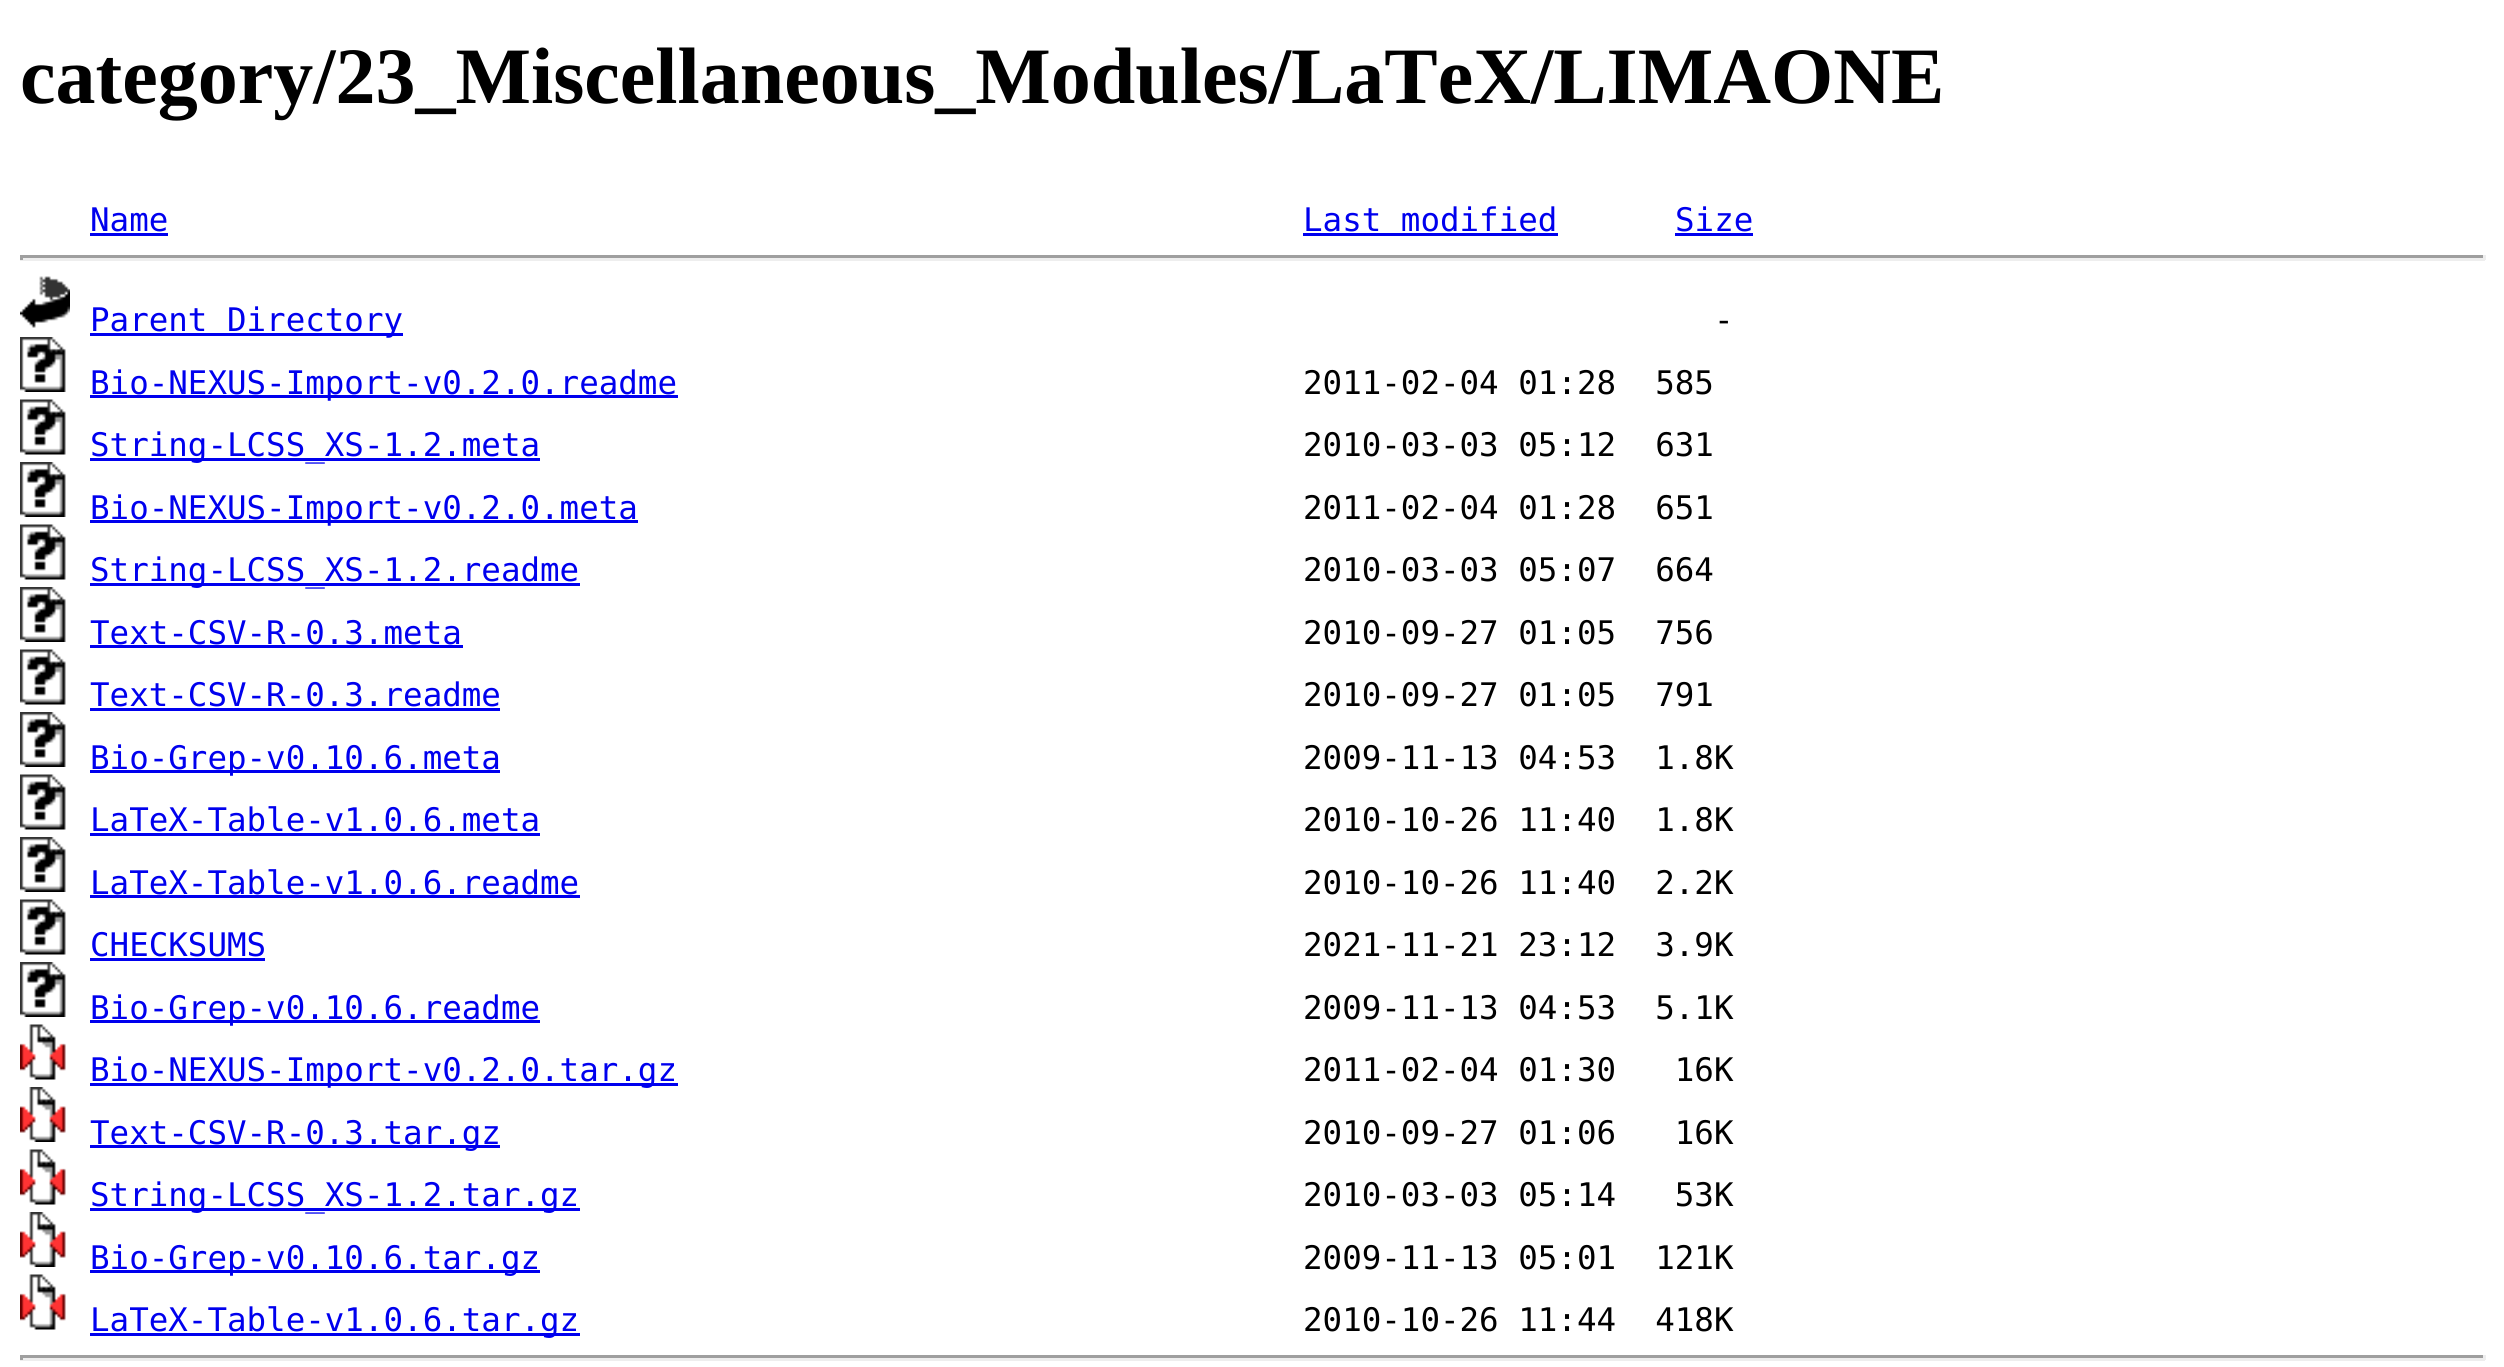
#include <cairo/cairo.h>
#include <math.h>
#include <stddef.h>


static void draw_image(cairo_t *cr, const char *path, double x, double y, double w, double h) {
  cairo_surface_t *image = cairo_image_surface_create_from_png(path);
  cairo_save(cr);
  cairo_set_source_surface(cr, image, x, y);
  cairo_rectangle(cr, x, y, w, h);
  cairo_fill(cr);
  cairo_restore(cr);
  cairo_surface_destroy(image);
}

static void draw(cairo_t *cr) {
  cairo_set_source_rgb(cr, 1, 1, 1);
  cairo_paint(cr);
  cairo_set_source_rgb(cr, 0, 0, 238 / 255.0);
  cairo_rectangle(cr, 90, 233, 78, 3);
  cairo_fill(cr);
  cairo_rectangle(cr, 1303, 233, 255, 3);
  cairo_fill(cr);
  cairo_rectangle(cr, 1675, 233, 78, 3);
  cairo_fill(cr);
  cairo_set_source_rgb(cr, 159 / 255.0, 159 / 255.0, 159 / 255.0);
  cairo_rectangle(cr, 20, 255, 2465, 3);
  cairo_fill(cr);
  cairo_set_source_rgb(cr, 238 / 255.0, 238 / 255.0, 238 / 255.0);
  cairo_rectangle(cr, 2483, 255, 3, 5);
  cairo_fill(cr);
  cairo_rectangle(cr, 20, 258, 2465, 3);
  cairo_fill(cr);
  cairo_set_source_rgb(cr, 159 / 255.0, 159 / 255.0, 159 / 255.0);
  cairo_rectangle(cr, 20, 255, 3, 5);
  cairo_fill(cr);
  draw_image(cr, "images/1.png", 20, 276, 50, 52);
  cairo_set_source_rgb(cr, 0, 0, 238 / 255.0);
  cairo_rectangle(cr, 90, 333, 313, 3);
  cairo_fill(cr);
  draw_image(cr, "images/2.png", 20, 337, 46, 55);
  cairo_rectangle(cr, 90, 395, 588, 3);
  cairo_fill(cr);
  draw_image(cr, "images/3.png", 20, 399, 46, 56);
  cairo_rectangle(cr, 90, 458, 450, 3);
  cairo_fill(cr);
  draw_image(cr, "images/2.png", 20, 462, 46, 55);
  cairo_rectangle(cr, 90, 520, 548, 3);
  cairo_fill(cr);
  draw_image(cr, "images/3.png", 20, 524, 46, 56);
  cairo_rectangle(cr, 90, 583, 490, 3);
  cairo_fill(cr);
  draw_image(cr, "images/2.png", 20, 587, 46, 55);
  cairo_rectangle(cr, 90, 645, 373, 3);
  cairo_fill(cr);
  draw_image(cr, "images/3.png", 20, 649, 46, 56);
  cairo_rectangle(cr, 90, 708, 410, 3);
  cairo_fill(cr);
  draw_image(cr, "images/2.png", 20, 712, 46, 55);
  cairo_rectangle(cr, 90, 770, 410, 3);
  cairo_fill(cr);
  draw_image(cr, "images/3.png", 20, 774, 46, 56);
  cairo_rectangle(cr, 90, 833, 450, 3);
  cairo_fill(cr);
  draw_image(cr, "images/2.png", 20, 837, 46, 55);
  cairo_rectangle(cr, 90, 895, 490, 3);
  cairo_fill(cr);
  draw_image(cr, "images/3.png", 20, 899, 46, 56);
  cairo_rectangle(cr, 90, 958, 175, 3);
  cairo_fill(cr);
  draw_image(cr, "images/2.png", 20, 962, 46, 55);
  cairo_rectangle(cr, 90, 1020, 450, 3);
  cairo_fill(cr);
  draw_image(cr, "images/4.png", 20, 1024, 46, 56);
  cairo_rectangle(cr, 90, 1083, 588, 3);
  cairo_fill(cr);
  draw_image(cr, "images/5.png", 20, 1087, 46, 55);
  cairo_rectangle(cr, 90, 1145, 410, 3);
  cairo_fill(cr);
  draw_image(cr, "images/4.png", 20, 1149, 46, 56);
  cairo_rectangle(cr, 90, 1208, 490, 3);
  cairo_fill(cr);
  draw_image(cr, "images/6.png", 20, 1212, 46, 55);
  cairo_rectangle(cr, 90, 1270, 450, 3);
  cairo_fill(cr);
  draw_image(cr, "images/4.png", 20, 1274, 46, 56);
  cairo_rectangle(cr, 90, 1333, 490, 3);
  cairo_fill(cr);
  cairo_set_source_rgb(cr, 159 / 255.0, 159 / 255.0, 159 / 255.0);
  cairo_rectangle(cr, 20, 1355, 2465, 3);
  cairo_fill(cr);
  cairo_set_source_rgb(cr, 238 / 255.0, 238 / 255.0, 238 / 255.0);
  cairo_rectangle(cr, 2483, 1355, 3, 5);
  cairo_fill(cr);
  cairo_rectangle(cr, 20, 1358, 2465, 3);
  cairo_fill(cr);
  cairo_set_source_rgb(cr, 159 / 255.0, 159 / 255.0, 159 / 255.0);
  cairo_rectangle(cr, 20, 1355, 3, 5);
  cairo_fill(cr);
  cairo_select_font_face(cr, "Liberation Serif", CAIRO_FONT_SLANT_NORMAL, CAIRO_FONT_WEIGHT_BOLD);
  cairo_set_font_size(cr, 80);
  cairo_set_source_rgb(cr, 0, 0, 0);
  cairo_move_to(cr, 20, 103);
  cairo_show_text(cr, "category/23_Miscellaneous_Modules/LaTeX/LIMAONE");
  cairo_select_font_face(cr, "DejaVu Sans Mono", CAIRO_FONT_SLANT_NORMAL, CAIRO_FONT_WEIGHT_NORMAL);
  cairo_set_font_size(cr, 32.5);
  cairo_set_source_rgb(cr, 0, 0, 238 / 255.0);
  cairo_move_to(cr, 90, 231);
  cairo_show_text(cr, "Name");
  cairo_move_to(cr, 1303, 231);
  cairo_show_text(cr, "Last modified");
  cairo_move_to(cr, 1675, 231);
  cairo_show_text(cr, "Size");
  cairo_move_to(cr, 90, 331);
  cairo_show_text(cr, "Parent Directory");
  cairo_set_source_rgb(cr, 0, 0, 0);
  cairo_move_to(cr, 1714, 331);
  cairo_show_text(cr, "-");
  cairo_set_source_rgb(cr, 0, 0, 238 / 255.0);
  cairo_move_to(cr, 90, 394);
  cairo_show_text(cr, "Bio-NEXUS-Import-v0.2.0.readme");
  cairo_set_source_rgb(cr, 0, 0, 0);
  cairo_move_to(cr, 1303, 394);
  cairo_show_text(cr, "2011-02-04 01:28  585");
  cairo_set_source_rgb(cr, 0, 0, 238 / 255.0);
  cairo_move_to(cr, 90, 456);
  cairo_show_text(cr, "String-LCSS_XS-1.2.meta");
  cairo_set_source_rgb(cr, 0, 0, 0);
  cairo_move_to(cr, 1303, 456);
  cairo_show_text(cr, "2010-03-03 05:12  631");
  cairo_set_source_rgb(cr, 0, 0, 238 / 255.0);
  cairo_move_to(cr, 90, 519);
  cairo_show_text(cr, "Bio-NEXUS-Import-v0.2.0.meta");
  cairo_set_source_rgb(cr, 0, 0, 0);
  cairo_move_to(cr, 1303, 519);
  cairo_show_text(cr, "2011-02-04 01:28  651");
  cairo_set_source_rgb(cr, 0, 0, 238 / 255.0);
  cairo_move_to(cr, 90, 581);
  cairo_show_text(cr, "String-LCSS_XS-1.2.readme");
  cairo_set_source_rgb(cr, 0, 0, 0);
  cairo_move_to(cr, 1303, 581);
  cairo_show_text(cr, "2010-03-03 05:07  664");
  cairo_set_source_rgb(cr, 0, 0, 238 / 255.0);
  cairo_move_to(cr, 90, 644);
  cairo_show_text(cr, "Text-CSV-R-0.3.meta");
  cairo_set_source_rgb(cr, 0, 0, 0);
  cairo_move_to(cr, 1303, 644);
  cairo_show_text(cr, "2010-09-27 01:05  756");
  cairo_set_source_rgb(cr, 0, 0, 238 / 255.0);
  cairo_move_to(cr, 90, 706);
  cairo_show_text(cr, "Text-CSV-R-0.3.readme");
  cairo_set_source_rgb(cr, 0, 0, 0);
  cairo_move_to(cr, 1303, 706);
  cairo_show_text(cr, "2010-09-27 01:05  791");
  cairo_set_source_rgb(cr, 0, 0, 238 / 255.0);
  cairo_move_to(cr, 90, 769);
  cairo_show_text(cr, "Bio-Grep-v0.10.6.meta");
  cairo_set_source_rgb(cr, 0, 0, 0);
  cairo_move_to(cr, 1303, 769);
  cairo_show_text(cr, "2009-11-13 04:53  1.8K");
  cairo_set_source_rgb(cr, 0, 0, 238 / 255.0);
  cairo_move_to(cr, 90, 831);
  cairo_show_text(cr, "LaTeX-Table-v1.0.6.meta");
  cairo_set_source_rgb(cr, 0, 0, 0);
  cairo_move_to(cr, 1303, 831);
  cairo_show_text(cr, "2010-10-26 11:40  1.8K");
  cairo_set_source_rgb(cr, 0, 0, 238 / 255.0);
  cairo_move_to(cr, 90, 894);
  cairo_show_text(cr, "LaTeX-Table-v1.0.6.readme");
  cairo_set_source_rgb(cr, 0, 0, 0);
  cairo_move_to(cr, 1303, 894);
  cairo_show_text(cr, "2010-10-26 11:40  2.2K");
  cairo_set_source_rgb(cr, 0, 0, 238 / 255.0);
  cairo_move_to(cr, 90, 956);
  cairo_show_text(cr, "CHECKSUMS");
  cairo_set_source_rgb(cr, 0, 0, 0);
  cairo_move_to(cr, 1303, 956);
  cairo_show_text(cr, "2021-11-21 23:12  3.9K");
  cairo_set_source_rgb(cr, 0, 0, 238 / 255.0);
  cairo_move_to(cr, 90, 1019);
  cairo_show_text(cr, "Bio-Grep-v0.10.6.readme");
  cairo_set_source_rgb(cr, 0, 0, 0);
  cairo_move_to(cr, 1303, 1019);
  cairo_show_text(cr, "2009-11-13 04:53  5.1K");
  cairo_set_source_rgb(cr, 0, 0, 238 / 255.0);
  cairo_move_to(cr, 90, 1081);
  cairo_show_text(cr, "Bio-NEXUS-Import-v0.2.0.tar.gz");
  cairo_set_source_rgb(cr, 0, 0, 0);
  cairo_move_to(cr, 1303, 1081);
  cairo_show_text(cr, "2011-02-04 01:30   16K");
  cairo_set_source_rgb(cr, 0, 0, 238 / 255.0);
  cairo_move_to(cr, 90, 1144);
  cairo_show_text(cr, "Text-CSV-R-0.3.tar.gz");
  cairo_set_source_rgb(cr, 0, 0, 0);
  cairo_move_to(cr, 1303, 1144);
  cairo_show_text(cr, "2010-09-27 01:06   16K");
  cairo_set_source_rgb(cr, 0, 0, 238 / 255.0);
  cairo_move_to(cr, 90, 1206);
  cairo_show_text(cr, "String-LCSS_XS-1.2.tar.gz");
  cairo_set_source_rgb(cr, 0, 0, 0);
  cairo_move_to(cr, 1303, 1206);
  cairo_show_text(cr, "2010-03-03 05:14   53K");
  cairo_set_source_rgb(cr, 0, 0, 238 / 255.0);
  cairo_move_to(cr, 90, 1269);
  cairo_show_text(cr, "Bio-Grep-v0.10.6.tar.gz");
  cairo_set_source_rgb(cr, 0, 0, 0);
  cairo_move_to(cr, 1303, 1269);
  cairo_show_text(cr, "2009-11-13 05:01  121K");
  cairo_set_source_rgb(cr, 0, 0, 238 / 255.0);
  cairo_move_to(cr, 90, 1331);
  cairo_show_text(cr, "LaTeX-Table-v1.0.6.tar.gz");
  cairo_set_source_rgb(cr, 0, 0, 0);
  cairo_move_to(cr, 1303, 1331);
  cairo_show_text(cr, "2010-10-26 11:44  418K");
}

int main(void) {
  cairo_surface_t *surface = cairo_image_surface_create(CAIRO_FORMAT_RGB24, 2504, 1367);
  cairo_t *cr = cairo_create(surface);
  cairo_font_options_t *options = cairo_font_options_create();
  cairo_font_options_set_hint_metrics(options, CAIRO_HINT_METRICS_OFF);
  cairo_font_options_set_hint_style(options, CAIRO_HINT_STYLE_NONE);
  cairo_set_font_options(cr, options);
  cairo_set_miter_limit(cr, 4);
  draw(cr);
  cairo_surface_write_to_png(surface, "out.png");
  cairo_font_options_destroy(options);
  cairo_destroy(cr);
  cairo_surface_destroy(surface);
  return 0;
}
